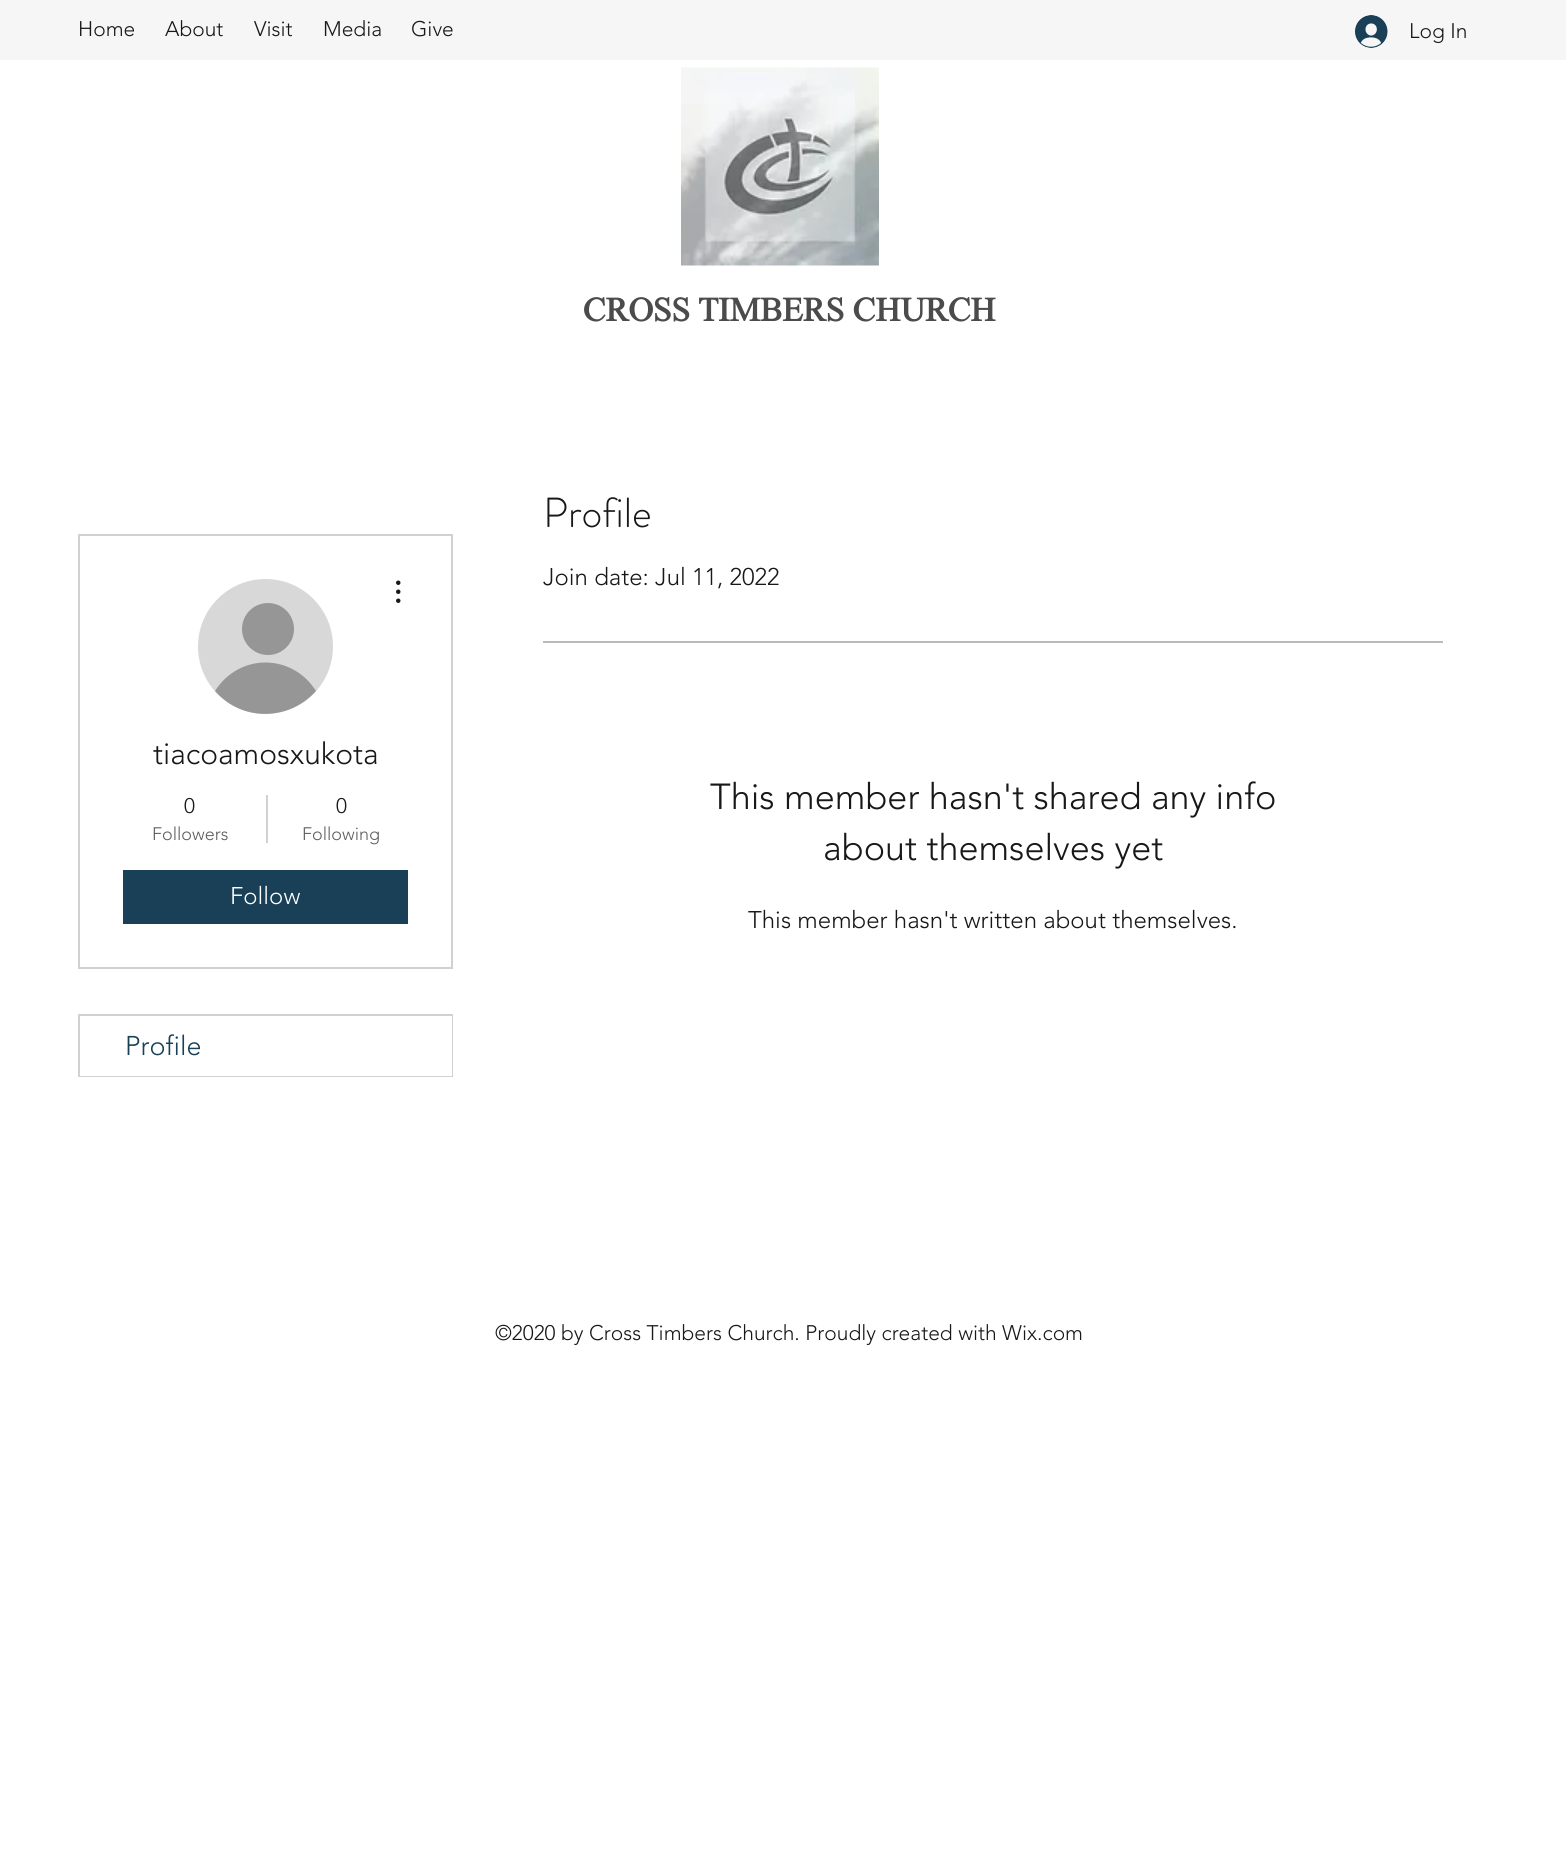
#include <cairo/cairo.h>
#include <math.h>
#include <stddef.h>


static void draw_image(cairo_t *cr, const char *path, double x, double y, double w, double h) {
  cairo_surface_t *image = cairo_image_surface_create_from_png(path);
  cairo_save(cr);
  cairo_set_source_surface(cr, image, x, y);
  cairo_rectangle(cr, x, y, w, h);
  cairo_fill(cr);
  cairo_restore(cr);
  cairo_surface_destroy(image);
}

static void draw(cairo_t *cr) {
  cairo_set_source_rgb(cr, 1, 1, 1);
  cairo_paint(cr);
  cairo_set_source_rgb(cr, 246 / 255.0, 246 / 255.0, 246 / 255.0);
  cairo_rectangle(cr, 0, 0, 1566, 60);
  cairo_fill(cr);
  draw_image(cr, "images/1.png", 1355, 15, 33, 33);
  draw_image(cr, "images/2.png", 681, 67, 198, 199);
  cairo_rectangle(cr, 79, 535, 373, 433);
  cairo_set_source_rgb(cr, 209 / 255.0, 209 / 255.0, 209 / 255.0);
  cairo_stroke(cr);
  cairo_set_source_rgb(cr, 216 / 255.0, 216 / 255.0, 216 / 255.0);
  cairo_arc(cr, 265.5, 646.5, 67.5, 0, 2 * M_PI);
  cairo_fill(cr);
  cairo_set_source_rgb(cr, 150 / 255.0, 150 / 255.0, 150 / 255.0);
  cairo_arc(cr, 268, 629, 26, 0, 2 * M_PI);
  cairo_fill(cr);
  cairo_new_path(cr);
  cairo_move_to(cr, 316, 691);
  cairo_curve_to(cr, 289, 721, 242, 722, 215, 691);
  cairo_curve_to(cr, 239, 653, 292, 653, 316, 691);
  cairo_close_path(cr);
  cairo_fill(cr);
  draw_image(cr, "images/3.png", 396, 580, 5, 23);
  cairo_set_source_rgb(cr, 209 / 255.0, 209 / 255.0, 209 / 255.0);
  cairo_rectangle(cr, 266, 795, 2, 48);
  cairo_fill(cr);
  cairo_set_source_rgb(cr, 25 / 255.0, 64 / 255.0, 86 / 255.0);
  cairo_rectangle(cr, 123, 870, 285, 54);
  cairo_fill(cr);
  cairo_rectangle(cr, 79, 1015, 373, 61);
  cairo_set_source_rgb(cr, 209 / 255.0, 209 / 255.0, 209 / 255.0);
  cairo_stroke(cr);
  cairo_set_source_rgb(cr, 1, 1, 1);
  cairo_rectangle(cr, 80, 1016, 372, 60);
  cairo_fill(cr);
  cairo_set_source_rgb(cr, 186 / 255.0, 186 / 255.0, 186 / 255.0);
  cairo_rectangle(cr, 543, 641, 900, 2);
  cairo_fill(cr);
  cairo_select_font_face(cr, "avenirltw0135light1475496 Light", CAIRO_FONT_SLANT_NORMAL, CAIRO_FONT_WEIGHT_NORMAL);
  cairo_set_font_size(cr, 21);
  cairo_set_source_rgb(cr, 24 / 255.0, 24 / 255.0, 24 / 255.0);
  cairo_move_to(cr, 78, 36);
  cairo_show_text(cr, "Home");
  cairo_move_to(cr, 165, 36);
  cairo_show_text(cr, "About");
  cairo_move_to(cr, 254, 36);
  cairo_show_text(cr, "Visit");
  cairo_move_to(cr, 323, 36);
  cairo_show_text(cr, "Media");
  cairo_move_to(cr, 411, 36);
  cairo_show_text(cr, "Give");
  cairo_move_to(cr, 1409, 38);
  cairo_show_text(cr, "Log In");
  cairo_select_font_face(cr, "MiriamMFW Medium", CAIRO_FONT_SLANT_NORMAL, CAIRO_FONT_WEIGHT_BOLD);
  cairo_set_font_size(cr, 33);
  cairo_set_source_rgb(cr, 75 / 255.0, 75 / 255.0, 75 / 255.0);
  cairo_move_to(cr, 583, 321);
  cairo_show_text(cr, "CROSS TIMBERS CHURCH");
  cairo_select_font_face(cr, "avenirltw0135light1475496 Light", CAIRO_FONT_SLANT_NORMAL, CAIRO_FONT_WEIGHT_NORMAL);
  cairo_set_font_size(cr, 30);
  cairo_set_source_rgb(cr, 24 / 255.0, 24 / 255.0, 24 / 255.0);
  cairo_move_to(cr, 153, 764);
  cairo_show_text(cr, "tiacoamosxukota");
  cairo_set_font_size(cr, 21);
  cairo_move_to(cr, 184, 813);
  cairo_show_text(cr, "0");
  cairo_set_font_size(cr, 18);
  cairo_set_source_rgb(cr, 93 / 255.0, 93 / 255.0, 93 / 255.0);
  cairo_move_to(cr, 152, 840);
  cairo_show_text(cr, "Followers");
  cairo_set_font_size(cr, 21);
  cairo_set_source_rgb(cr, 24 / 255.0, 24 / 255.0, 24 / 255.0);
  cairo_move_to(cr, 336, 813);
  cairo_show_text(cr, "0");
  cairo_set_font_size(cr, 18);
  cairo_set_source_rgb(cr, 93 / 255.0, 93 / 255.0, 93 / 255.0);
  cairo_move_to(cr, 302, 840);
  cairo_show_text(cr, "Following");
  cairo_set_font_size(cr, 24);
  cairo_set_source_rgb(cr, 1, 1, 1);
  cairo_move_to(cr, 230, 904);
  cairo_show_text(cr, "Follow");
  cairo_set_font_size(cr, 27);
  cairo_set_source_rgb(cr, 25 / 255.0, 64 / 255.0, 86 / 255.0);
  cairo_move_to(cr, 125, 1055);
  cairo_show_text(cr, "Profile");
  cairo_select_font_face(cr, "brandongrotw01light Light", CAIRO_FONT_SLANT_NORMAL, CAIRO_FONT_WEIGHT_NORMAL);
  cairo_set_font_size(cr, 42);
  cairo_set_source_rgb(cr, 24 / 255.0, 24 / 255.0, 24 / 255.0);
  cairo_move_to(cr, 543, 527);
  cairo_show_text(cr, "Profile");
  cairo_select_font_face(cr, "avenirltw0135light1475496 Light", CAIRO_FONT_SLANT_NORMAL, CAIRO_FONT_WEIGHT_NORMAL);
  cairo_set_font_size(cr, 24);
  cairo_move_to(cr, 543, 585);
  cairo_show_text(cr, "Join date: Jul 11, 2022");
  cairo_set_font_size(cr, 36);
  cairo_move_to(cr, 710, 809);
  cairo_show_text(cr, "This member hasn't shared any info");
  cairo_move_to(cr, 823, 860);
  cairo_show_text(cr, "about themselves yet");
  cairo_set_font_size(cr, 24);
  cairo_move_to(cr, 748, 928);
  cairo_show_text(cr, "This member hasn't written about themselves.");
  cairo_set_font_size(cr, 21);
  cairo_move_to(cr, 495, 1340);
  cairo_show_text(cr, "©2020 by Cross Timbers Church. Proudly created with Wix.com");
}

int main(void) {
  cairo_surface_t *surface = cairo_image_surface_create(CAIRO_FORMAT_RGB24, 1566, 1861);
  cairo_t *cr = cairo_create(surface);
  cairo_font_options_t *options = cairo_font_options_create();
  cairo_font_options_set_hint_metrics(options, CAIRO_HINT_METRICS_OFF);
  cairo_font_options_set_hint_style(options, CAIRO_HINT_STYLE_NONE);
  cairo_set_font_options(cr, options);
  cairo_set_miter_limit(cr, 4);
  draw(cr);
  cairo_surface_write_to_png(surface, "out.png");
  cairo_font_options_destroy(options);
  cairo_destroy(cr);
  cairo_surface_destroy(surface);
  return 0;
}
